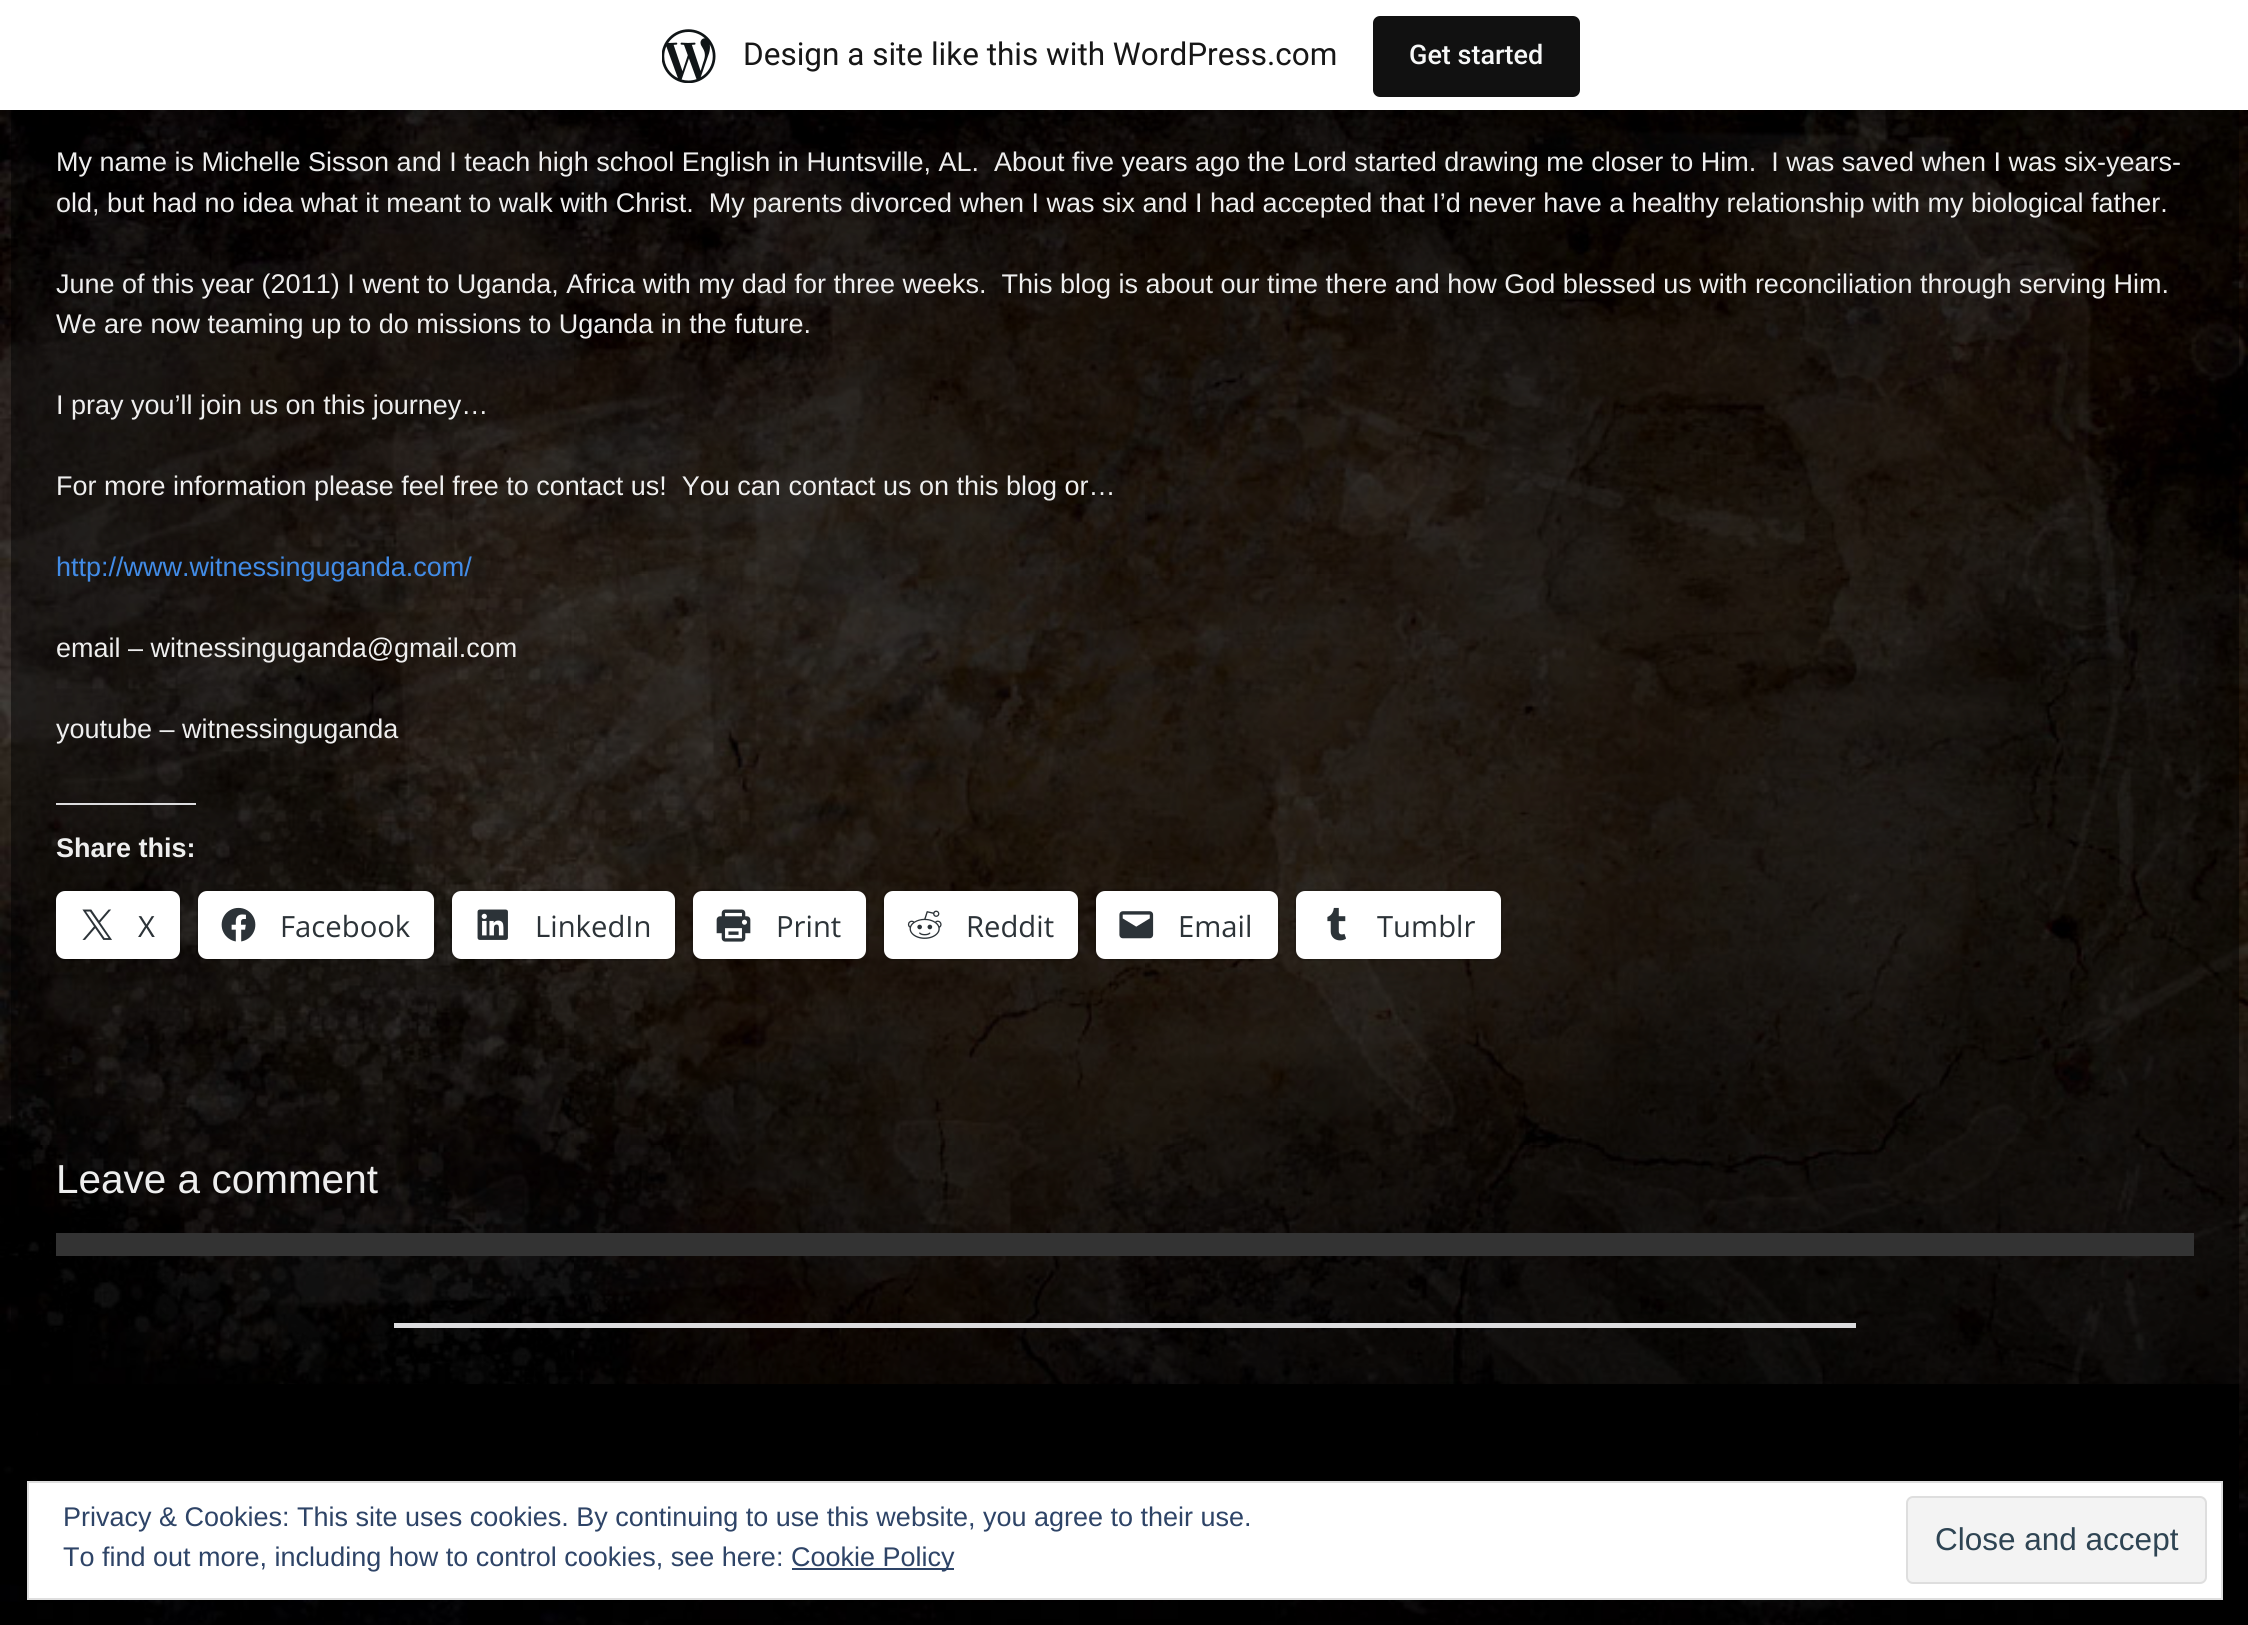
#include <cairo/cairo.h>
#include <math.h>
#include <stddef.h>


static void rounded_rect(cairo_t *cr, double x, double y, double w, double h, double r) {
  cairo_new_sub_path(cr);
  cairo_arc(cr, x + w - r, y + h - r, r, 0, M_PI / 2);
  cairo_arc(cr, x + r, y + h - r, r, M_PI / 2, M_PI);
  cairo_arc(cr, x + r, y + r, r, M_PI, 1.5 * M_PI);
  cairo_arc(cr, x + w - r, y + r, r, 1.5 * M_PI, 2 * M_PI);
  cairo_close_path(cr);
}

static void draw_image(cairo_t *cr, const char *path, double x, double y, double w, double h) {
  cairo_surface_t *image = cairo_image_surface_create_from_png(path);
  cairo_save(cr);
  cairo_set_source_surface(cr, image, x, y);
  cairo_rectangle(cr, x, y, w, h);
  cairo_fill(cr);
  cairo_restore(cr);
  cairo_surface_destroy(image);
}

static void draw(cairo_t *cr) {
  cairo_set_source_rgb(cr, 1, 1, 1);
  cairo_paint(cr);
  draw_image(cr, "images/1.png", 0, 110, 2248, 1515);
  cairo_set_source_rgba(cr, 0, 0, 0, 0.08);
  cairo_new_path(cr);
  cairo_move_to(cr, 2, 110);
  cairo_line_to(cr, 2, 117);
  cairo_line_to(cr, 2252, 117);
  cairo_line_to(cr, 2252, 7);
  cairo_line_to(cr, 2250, 7);
  cairo_line_to(cr, 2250, 110);
  cairo_close_path(cr);
  cairo_fill(cr);
  draw_image(cr, "images/2.png", 662, 29, 54, 54);
  cairo_set_source_rgb(cr, 17 / 255.0, 17 / 255.0, 17 / 255.0);
  rounded_rect(cr, 1373, 16, 207, 81, 7);
  cairo_fill(cr);
  cairo_set_source_rgb(cr, 220 / 255.0, 220 / 255.0, 222 / 255.0);
  cairo_rectangle(cr, 56, 803, 140, 2);
  cairo_fill(cr);
  cairo_save(cr);
  cairo_rectangle(cr, 56, 20, 2138, 1337);
  cairo_clip(cr);
  rounded_rect(cr, 55, 890, 126, 70, 10);
  cairo_set_source_rgba(cr, 0, 0, 0, 0.12);
  cairo_stroke(cr);
  cairo_restore(cr);
  cairo_set_source_rgb(cr, 1, 1, 1);
  rounded_rect(cr, 56, 891, 124, 68, 9);
  cairo_fill(cr);
  draw_image(cr, "images/3.png", 82, 909, 30, 31);
  rounded_rect(cr, 197, 890, 239, 70, 10);
  cairo_set_source_rgba(cr, 0, 0, 0, 0.12);
  cairo_stroke(cr);
  cairo_set_source_rgb(cr, 1, 1, 1);
  rounded_rect(cr, 198, 891, 236, 68, 9);
  cairo_fill(cr);
  draw_image(cr, "images/4.png", 221, 907, 35, 35);
  rounded_rect(cr, 451, 890, 225, 70, 10);
  cairo_set_source_rgba(cr, 0, 0, 0, 0.12);
  cairo_stroke(cr);
  cairo_set_source_rgb(cr, 1, 1, 1);
  rounded_rect(cr, 452, 891, 223, 68, 9);
  cairo_fill(cr);
  draw_image(cr, "images/5.png", 477, 909, 31, 31);
  rounded_rect(cr, 692, 890, 176, 70, 10);
  cairo_set_source_rgba(cr, 0, 0, 0, 0.12);
  cairo_stroke(cr);
  cairo_set_source_rgb(cr, 1, 1, 1);
  rounded_rect(cr, 693, 891, 173, 68, 9);
  cairo_fill(cr);
  draw_image(cr, "images/6.png", 716, 909, 35, 33);
  rounded_rect(cr, 883, 890, 196, 70, 10);
  cairo_set_source_rgba(cr, 0, 0, 0, 0.12);
  cairo_stroke(cr);
  cairo_set_source_rgb(cr, 1, 1, 1);
  rounded_rect(cr, 884, 891, 194, 68, 9);
  cairo_fill(cr);
  draw_image(cr, "images/7.png", 907, 910, 35, 29);
  rounded_rect(cr, 1095, 890, 184, 70, 10);
  cairo_set_source_rgba(cr, 0, 0, 0, 0.12);
  cairo_stroke(cr);
  cairo_set_source_rgb(cr, 1, 1, 1);
  rounded_rect(cr, 1096, 891, 182, 68, 9);
  cairo_fill(cr);
  draw_image(cr, "images/8.png", 1119, 911, 35, 28);
  rounded_rect(cr, 1295, 890, 207, 70, 10);
  cairo_set_source_rgba(cr, 0, 0, 0, 0.12);
  cairo_stroke(cr);
  cairo_set_source_rgb(cr, 1, 1, 1);
  rounded_rect(cr, 1296, 891, 205, 68, 9);
  cairo_fill(cr);
  draw_image(cr, "images/9.png", 1327, 907, 19, 34);
  cairo_set_source_rgb(cr, 51 / 255.0, 51 / 255.0, 51 / 255.0);
  cairo_rectangle(cr, 56, 1233, 2138, 23);
  cairo_fill(cr);
  cairo_set_source_rgb(cr, 220 / 255.0, 220 / 255.0, 222 / 255.0);
  cairo_rectangle(cr, 394, 1323, 1462, 5);
  cairo_fill(cr);
  cairo_set_source_rgb(cr, 0, 0, 0);
  cairo_rectangle(cr, 38, 1384, 2201, 202);
  cairo_fill(cr);
  cairo_set_source_rgb(cr, 1, 1, 1);
  cairo_rectangle(cr, 28, 1482, 2194, 117);
  cairo_fill_preserve(cr);
  cairo_set_source_rgb(cr, 222 / 255.0, 222 / 255.0, 222 / 255.0);
  cairo_stroke(cr);
  cairo_set_source_rgb(cr, 46 / 255.0, 68 / 255.0, 103 / 255.0);
  cairo_rectangle(cr, 792, 1568, 162, 2);
  cairo_fill(cr);
  cairo_set_source_rgb(cr, 243 / 255.0, 243 / 255.0, 243 / 255.0);
  rounded_rect(cr, 1907, 1497, 299, 86, 6);
  cairo_fill_preserve(cr);
  cairo_set_source_rgb(cr, 222 / 255.0, 222 / 255.0, 222 / 255.0);
  cairo_stroke(cr);
  cairo_select_font_face(cr, "Roboto", CAIRO_FONT_SLANT_NORMAL, CAIRO_FONT_WEIGHT_NORMAL);
  cairo_set_font_size(cr, 31.5);
  cairo_set_source_rgb(cr, 23 / 255.0, 23 / 255.0, 23 / 255.0);
  cairo_move_to(cr, 743, 65);
  cairo_show_text(cr, "Design a site like this with WordPress.com");
  cairo_select_font_face(cr, "Roboto Medium", CAIRO_FONT_SLANT_NORMAL, CAIRO_FONT_WEIGHT_NORMAL);
  cairo_set_font_size(cr, 27);
  cairo_set_source_rgb(cr, 246 / 255.0, 247 / 255.0, 247 / 255.0);
  cairo_move_to(cr, 1409, 64);
  cairo_show_text(cr, "Get started");
  cairo_select_font_face(cr, "Liberation Sans", CAIRO_FONT_SLANT_NORMAL, CAIRO_FONT_WEIGHT_NORMAL);
  cairo_set_source_rgb(cr, 238 / 255.0, 238 / 255.0, 238 / 255.0);
  cairo_move_to(cr, 56, 171);
  cairo_show_text(cr, "My name is Michelle Sisson and I teach high school English in Huntsville, AL.  About five years ago the Lord started drawing me closer to Him.  I was saved when I was six-years-");
  cairo_move_to(cr, 56, 212);
  cairo_show_text(cr, "old, but had no idea what it meant to walk with Christ.  My parents divorced when I was six and I had accepted that I’d never have a healthy relationship with my biological father.");
  cairo_move_to(cr, 56, 293);
  cairo_show_text(cr, "June of this year (2011) I went to Uganda, Africa with my dad for three weeks.  This blog is about our time there and how God blessed us with reconciliation through serving Him.");
  cairo_move_to(cr, 56, 333);
  cairo_show_text(cr, "We are now teaming up to do missions to Uganda in the future.");
  cairo_move_to(cr, 56, 414);
  cairo_show_text(cr, "I pray you’ll join us on this journey…");
  cairo_move_to(cr, 56, 495);
  cairo_show_text(cr, "For more information please feel free to contact us!  You can contact us on this blog or…");
  cairo_set_source_rgb(cr, 66 / 255.0, 140 / 255.0, 231 / 255.0);
  cairo_move_to(cr, 56, 576);
  cairo_show_text(cr, "http://www.witnessinguganda.com/");
  cairo_set_source_rgb(cr, 238 / 255.0, 238 / 255.0, 238 / 255.0);
  cairo_move_to(cr, 56, 657);
  cairo_show_text(cr, "email – witnessinguganda@gmail.com");
  cairo_move_to(cr, 56, 738);
  cairo_show_text(cr, "youtube – witnessinguganda");
  cairo_select_font_face(cr, "Liberation Sans", CAIRO_FONT_SLANT_NORMAL, CAIRO_FONT_WEIGHT_BOLD);
  cairo_move_to(cr, 56, 857);
  cairo_show_text(cr, "Share this:");
  cairo_select_font_face(cr, "Open Sans", CAIRO_FONT_SLANT_NORMAL, CAIRO_FONT_WEIGHT_NORMAL);
  cairo_set_font_size(cr, 29.25);
  cairo_set_source_rgb(cr, 44 / 255.0, 51 / 255.0, 56 / 255.0);
  cairo_move_to(cr, 138, 937);
  cairo_show_text(cr, "X");
  cairo_move_to(cr, 280, 937);
  cairo_show_text(cr, "Facebook");
  cairo_move_to(cr, 535, 937);
  cairo_show_text(cr, "LinkedIn");
  cairo_move_to(cr, 776, 937);
  cairo_show_text(cr, "Print");
  cairo_move_to(cr, 966, 937);
  cairo_show_text(cr, "Reddit");
  cairo_move_to(cr, 1178, 937);
  cairo_show_text(cr, "Email");
  cairo_move_to(cr, 1377, 937);
  cairo_show_text(cr, "Tumblr");
  cairo_select_font_face(cr, "Liberation Sans", CAIRO_FONT_SLANT_NORMAL, CAIRO_FONT_WEIGHT_NORMAL);
  cairo_set_font_size(cr, 40.5);
  cairo_set_source_rgb(cr, 238 / 255.0, 238 / 255.0, 238 / 255.0);
  cairo_move_to(cr, 56, 1193);
  cairo_show_text(cr, "Leave a comment");
  cairo_set_font_size(cr, 27);
  cairo_set_source_rgb(cr, 46 / 255.0, 68 / 255.0, 103 / 255.0);
  cairo_move_to(cr, 63, 1526);
  cairo_show_text(cr, "Privacy & Cookies: This site uses cookies. By continuing to use this website, you agree to their use.");
  cairo_move_to(cr, 63, 1566);
  cairo_show_text(cr, "To find out more, including how to control cookies, see here:");
  cairo_move_to(cr, 791, 1566);
  cairo_show_text(cr, "Cookie Policy");
  cairo_set_font_size(cr, 31.5);
  cairo_set_source_rgb(cr, 46 / 255.0, 68 / 255.0, 83 / 255.0);
  cairo_move_to(cr, 1935, 1550);
  cairo_show_text(cr, "Close and accept");
}

int main(void) {
  cairo_surface_t *surface = cairo_image_surface_create(CAIRO_FORMAT_RGB24, 2248, 1625);
  cairo_t *cr = cairo_create(surface);
  cairo_font_options_t *options = cairo_font_options_create();
  cairo_font_options_set_hint_metrics(options, CAIRO_HINT_METRICS_OFF);
  cairo_font_options_set_hint_style(options, CAIRO_HINT_STYLE_NONE);
  cairo_set_font_options(cr, options);
  cairo_set_miter_limit(cr, 4);
  draw(cr);
  cairo_surface_write_to_png(surface, "out.png");
  cairo_font_options_destroy(options);
  cairo_destroy(cr);
  cairo_surface_destroy(surface);
  return 0;
}
